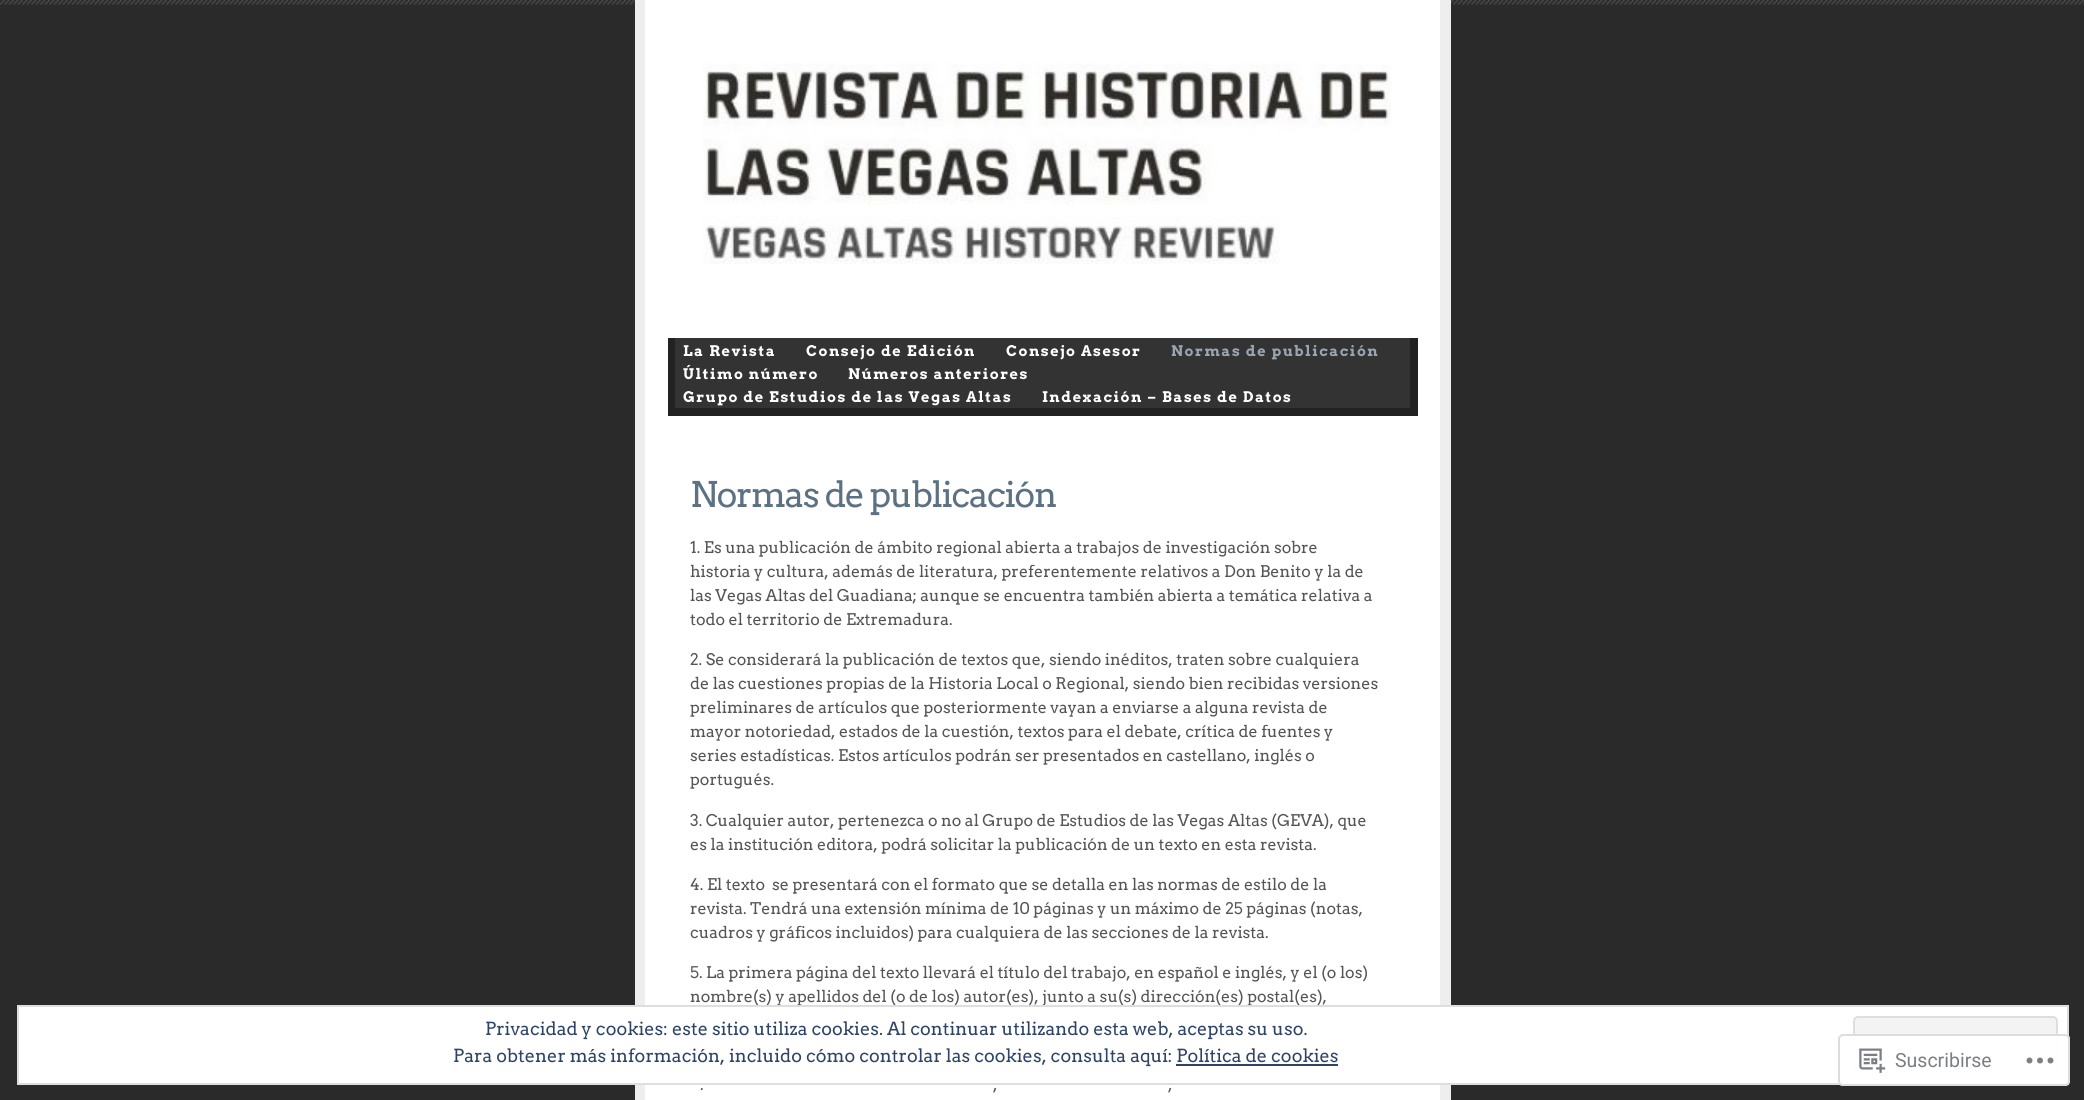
#include <cairo/cairo.h>
#include <math.h>
#include <stddef.h>


static void draw_spaced(cairo_t *cr, double x, double y, const char *s, double letter, double word) {
  cairo_move_to(cr, x, y);
  while (*s) {
    char ch[5] = {0};
    int n = 0;
    do ch[n++] = *s++; while ((*s & 0xC0) == 0x80);
    cairo_show_text(cr, ch);
    cairo_rel_move_to(cr, letter + word * (*ch == ' '), 0);
  }
}

static void rounded_rect(cairo_t *cr, double x, double y, double w, double h, double r) {
  cairo_new_sub_path(cr);
  cairo_arc(cr, x + w - r, y + h - r, r, 0, M_PI / 2);
  cairo_arc(cr, x + r, y + h - r, r, M_PI / 2, M_PI);
  cairo_arc(cr, x + r, y + r, r, M_PI, 1.5 * M_PI);
  cairo_arc(cr, x + w - r, y + r, r, 1.5 * M_PI, 2 * M_PI);
  cairo_close_path(cr);
}

static void draw_image(cairo_t *cr, const char *path, double x, double y, double w, double h) {
  cairo_surface_t *image = cairo_image_surface_create_from_png(path);
  cairo_save(cr);
  cairo_set_source_surface(cr, image, x, y);
  cairo_rectangle(cr, x, y, w, h);
  cairo_fill(cr);
  cairo_restore(cr);
  cairo_surface_destroy(image);
}

static void draw(cairo_t *cr) {
  cairo_set_source_rgb(cr, 42 / 255.0, 42 / 255.0, 43 / 255.0);
  cairo_paint(cr);
  draw_image(cr, "images/1.png", 0, 0, 2084, 5);
  cairo_set_source_rgb(cr, 1, 1, 1);
  cairo_rectangle(cr, 645, 0, 795, 1100);
  cairo_fill(cr);
  cairo_set_source_rgb(cr, 238 / 255.0, 238 / 255.0, 238 / 255.0);
  cairo_rectangle(cr, 1440, 0, 11, 1100);
  cairo_fill(cr);
  cairo_rectangle(cr, 635, 0, 10, 1100);
  cairo_fill(cr);
  draw_image(cr, "images/2.png", 703, 63, 688, 201);
  cairo_set_source_rgb(cr, 51 / 255.0, 51 / 255.0, 51 / 255.0);
  cairo_rectangle(cr, 675, 338, 735, 70);
  cairo_fill(cr);
  cairo_set_source_rgb(cr, 34 / 255.0, 34 / 255.0, 34 / 255.0);
  cairo_rectangle(cr, 1410, 338, 8, 78);
  cairo_fill(cr);
  cairo_rectangle(cr, 668, 408, 750, 8);
  cairo_fill(cr);
  cairo_rectangle(cr, 668, 338, 7, 78);
  cairo_fill(cr);
  cairo_select_font_face(cr, "Arvo", CAIRO_FONT_SLANT_NORMAL, CAIRO_FONT_WEIGHT_BOLD);
  cairo_set_font_size(cr, 14.6);
  cairo_set_source_rgb(cr, 1, 1, 1);
  draw_spaced(cr, 683, 356, "La Revista", 1.5, 0);
  draw_spaced(cr, 806, 356, "Consejo de Edición", 1.5, 0);
  draw_spaced(cr, 1006, 356, "Consejo Asesor", 1.5, 0);
  cairo_set_source_rgb(cr, 154 / 255.0, 165 / 255.0, 177 / 255.0);
  draw_spaced(cr, 1171, 356, "Normas de publicación", 1.5, 0);
  cairo_set_source_rgb(cr, 1, 1, 1);
  draw_spaced(cr, 683, 379, "Último número", 1.5, 0);
  draw_spaced(cr, 848, 379, "Números anteriores", 1.5, 0);
  draw_spaced(cr, 683, 402, "Grupo de Estudios de las Vegas Altas", 1.5, 0);
  draw_spaced(cr, 1042, 402, "Indexación – Bases de Datos", 1.5, 0);
  cairo_select_font_face(cr, "Arvo", CAIRO_FONT_SLANT_NORMAL, CAIRO_FONT_WEIGHT_NORMAL);
  cairo_set_font_size(cr, 35.25);
  cairo_set_source_rgb(cr, 92 / 255.0, 113 / 255.0, 132 / 255.0);
  draw_spaced(cr, 690, 507, "Normas de publicación", -1.5, 0);
  cairo_set_font_size(cr, 16.05);
  cairo_set_source_rgb(cr, 85 / 255.0, 85 / 255.0, 85 / 255.0);
  cairo_move_to(cr, 690, 553);
  cairo_show_text(cr, "1. Es una publicación de ámbito regional abierta a trabajos de investigación sobre");
  cairo_move_to(cr, 690, 577);
  cairo_show_text(cr, "historia y cultura, además de literatura, preferentemente relativos a Don Benito y la de");
  cairo_move_to(cr, 690, 601);
  cairo_show_text(cr, "las Vegas Altas del Guadiana; aunque se encuentra también abierta a temática relativa a");
  cairo_move_to(cr, 690, 625);
  cairo_show_text(cr, "todo el territorio de Extremadura.");
  cairo_move_to(cr, 690, 665);
  cairo_show_text(cr, "2. Se considerará la publicación de textos que, siendo inéditos, traten sobre cualquiera");
  cairo_move_to(cr, 690, 689);
  cairo_show_text(cr, "de las cuestiones propias de la Historia Local o Regional, siendo bien recibidas versiones");
  cairo_move_to(cr, 690, 713);
  cairo_show_text(cr, "preliminares de artículos que posteriormente vayan a enviarse a alguna revista de");
  cairo_move_to(cr, 690, 737);
  cairo_show_text(cr, "mayor notoriedad, estados de la cuestión, textos para el debate, crítica de fuentes y");
  cairo_move_to(cr, 690, 761);
  cairo_show_text(cr, "series estadísticas. Estos artículos podrán ser presentados en castellano, inglés o");
  cairo_move_to(cr, 690, 785);
  cairo_show_text(cr, "portugués.");
  cairo_move_to(cr, 690, 826);
  cairo_show_text(cr, "3. Cualquier autor, pertenezca o no al Grupo de Estudios de las Vegas Altas (GEVA), que");
  cairo_move_to(cr, 690, 850);
  cairo_show_text(cr, "es la institución editora, podrá solicitar la publicación de un texto en esta revista.");
  cairo_move_to(cr, 690, 890);
  cairo_show_text(cr, "4. El texto  se presentará con el formato que se detalla en las normas de estilo de la");
  cairo_move_to(cr, 690, 914);
  cairo_show_text(cr, "revista. Tendrá una extensión mínima de 10 páginas y un máximo de 25 páginas (notas,");
  cairo_move_to(cr, 690, 938);
  cairo_show_text(cr, "cuadros y gráficos incluidos) para cualquiera de las secciones de la revista.");
  cairo_move_to(cr, 690, 978);
  cairo_show_text(cr, "5. La primera página del texto llevará el título del trabajo, en español e inglés, y el (o los)");
  cairo_move_to(cr, 690, 1002);
  cairo_show_text(cr, "nombre(s) y apellidos del (o de los) autor(es), junto a su(s) dirección(es) postal(es),");
  cairo_move_to(cr, 700, 1090);
  cairo_show_text(cr, ".");
  cairo_move_to(cr, 993, 1090);
  cairo_show_text(cr, ",");
  cairo_move_to(cr, 1168, 1090);
  cairo_show_text(cr, ",");
  cairo_set_source_rgb(cr, 1, 1, 1);
  cairo_rectangle(cr, 18, 1006, 2050, 78);
  cairo_fill_preserve(cr);
  cairo_set_source_rgb(cr, 222 / 255.0, 222 / 255.0, 222 / 255.0);
  cairo_stroke(cr);
  cairo_set_font_size(cr, 18);
  cairo_set_source_rgb(cr, 46 / 255.0, 68 / 255.0, 103 / 255.0);
  cairo_move_to(cr, 485, 1035);
  cairo_show_text(cr, "Privacidad y cookies: este sitio utiliza cookies. Al continuar utilizando esta web, aceptas su uso.");
  cairo_set_source_rgb(cr, 243 / 255.0, 243 / 255.0, 243 / 255.0);
  rounded_rect(cr, 1854, 1017, 203, 56, 4);
  cairo_fill_preserve(cr);
  cairo_set_source_rgb(cr, 222 / 255.0, 222 / 255.0, 222 / 255.0);
  cairo_stroke(cr);
  cairo_set_source_rgb(cr, 46 / 255.0, 68 / 255.0, 103 / 255.0);
  cairo_move_to(cr, 453, 1062);
  cairo_show_text(cr, "Para obtener más información, incluido cómo controlar las cookies, consulta aquí: Política de cookies");
  cairo_rectangle(cr, 1176, 1064, 162, 2);
  cairo_fill(cr);
  cairo_set_source_rgba(cr, 1, 1, 1, 0.98);
  rounded_rect(cr, 1838, 1034, 232, 52, 5);
  cairo_fill(cr);
  rounded_rect(cr, 1839, 1035, 230, 50, 4);
  cairo_set_source_rgba(cr, 220 / 255.0, 220 / 255.0, 222 / 255.0, 0.98);
  cairo_stroke(cr);
  draw_image(cr, "images/3.png", 1859, 1048, 27, 25);
  cairo_select_font_face(cr, "Roboto", CAIRO_FONT_SLANT_NORMAL, CAIRO_FONT_WEIGHT_NORMAL);
  cairo_set_font_size(cr, 19.5);
  cairo_set_source_rgb(cr, 123 / 255.0, 127 / 255.0, 132 / 255.0);
  cairo_move_to(cr, 1895, 1067);
  cairo_show_text(cr, "Suscribirse");
  draw_image(cr, "images/4.png", 2026, 1057, 28, 7);
}

int main(void) {
  cairo_surface_t *surface = cairo_image_surface_create(CAIRO_FORMAT_RGB24, 2084, 1100);
  cairo_t *cr = cairo_create(surface);
  cairo_font_options_t *options = cairo_font_options_create();
  cairo_font_options_set_hint_metrics(options, CAIRO_HINT_METRICS_OFF);
  cairo_font_options_set_hint_style(options, CAIRO_HINT_STYLE_NONE);
  cairo_set_font_options(cr, options);
  cairo_set_miter_limit(cr, 4);
  draw(cr);
  cairo_surface_write_to_png(surface, "out.png");
  cairo_font_options_destroy(options);
  cairo_destroy(cr);
  cairo_surface_destroy(surface);
  return 0;
}
